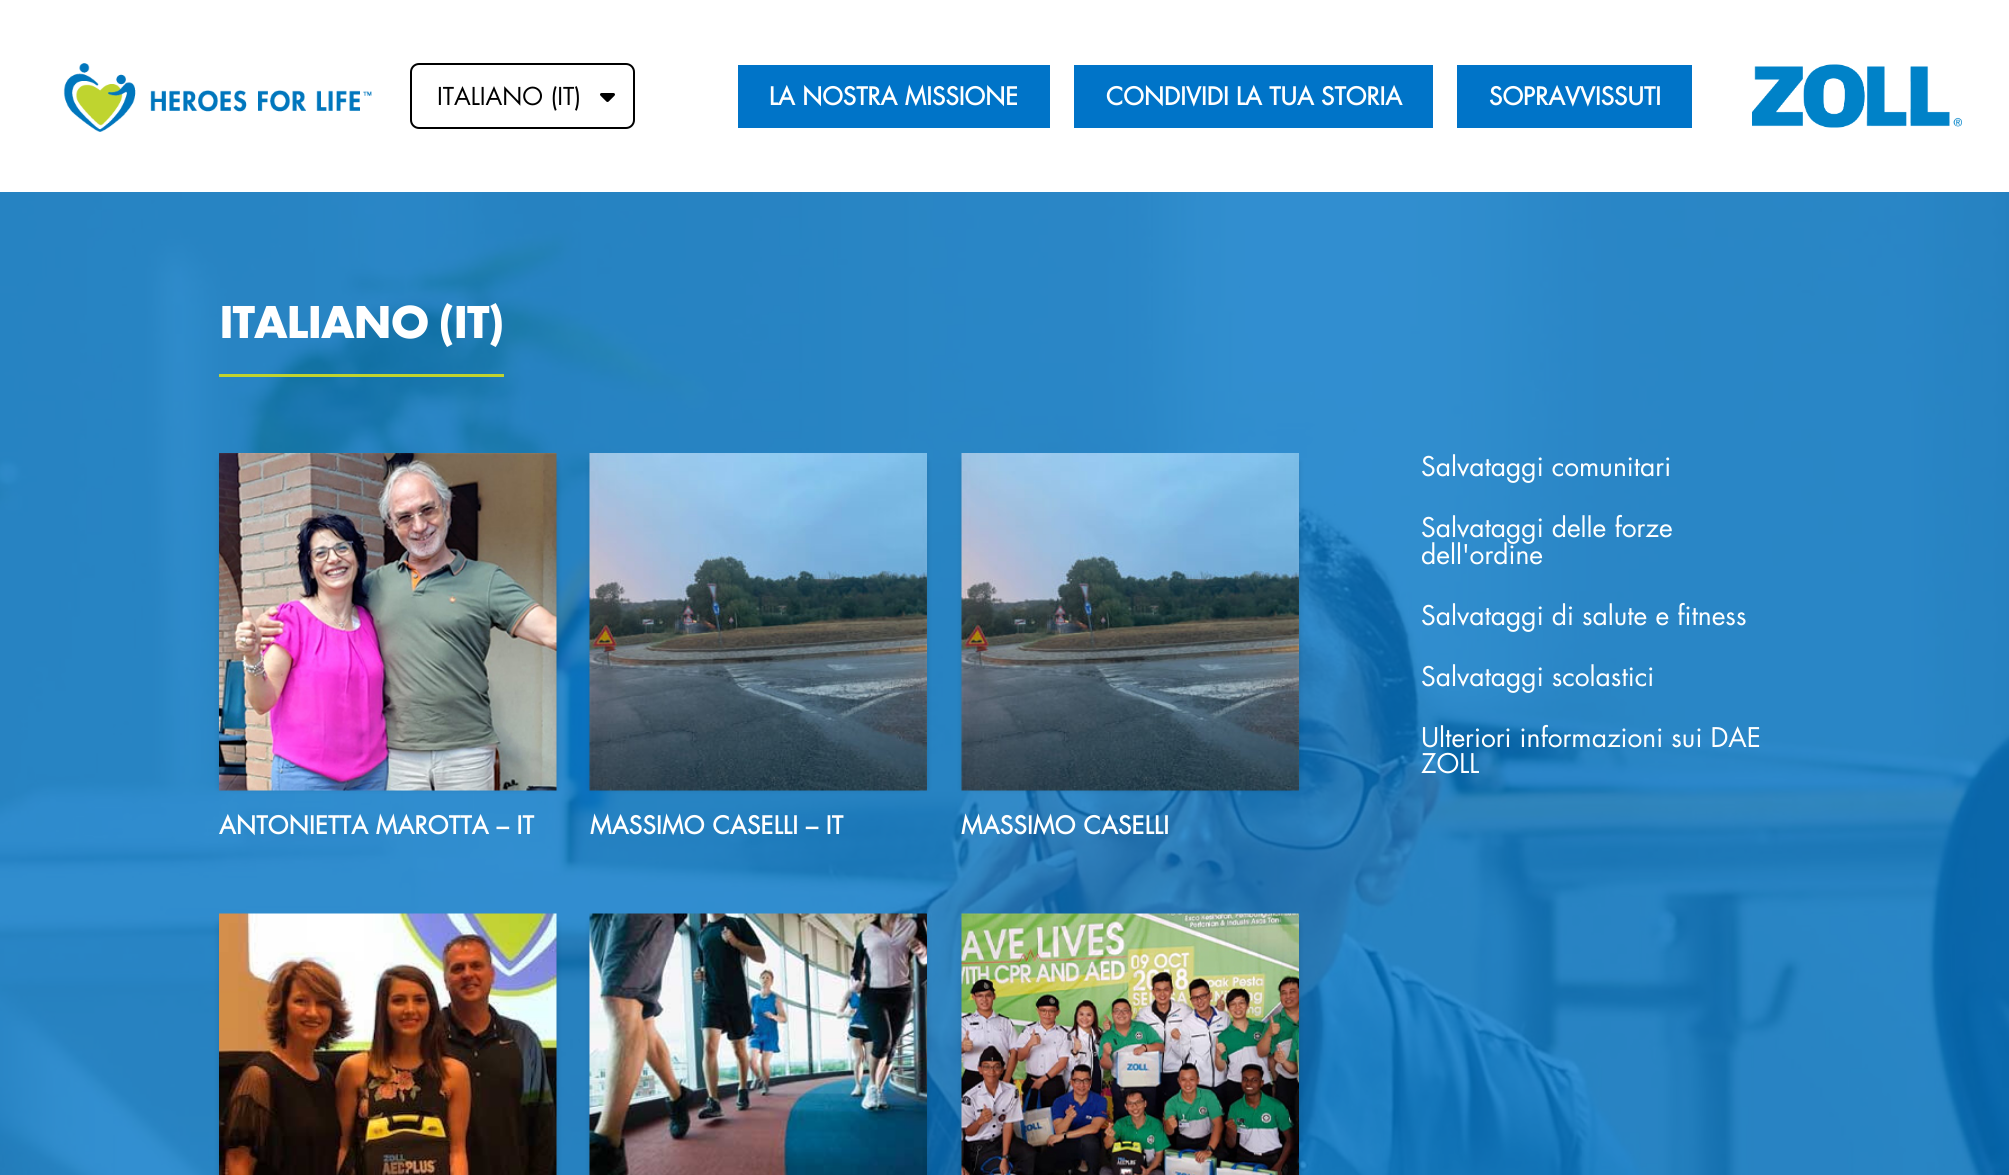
#include <cairo/cairo.h>
#include <math.h>
#include <stddef.h>


static void draw_spaced(cairo_t *cr, double x, double y, const char *s, double letter, double word) {
  cairo_move_to(cr, x, y);
  while (*s) {
    char ch[5] = {0};
    int n = 0;
    do ch[n++] = *s++; while ((*s & 0xC0) == 0x80);
    cairo_show_text(cr, ch);
    cairo_rel_move_to(cr, letter + word * (*ch == ' '), 0);
  }
}

static void rounded_rect(cairo_t *cr, double x, double y, double w, double h, double r) {
  cairo_new_sub_path(cr);
  cairo_arc(cr, x + w - r, y + h - r, r, 0, M_PI / 2);
  cairo_arc(cr, x + r, y + h - r, r, M_PI / 2, M_PI);
  cairo_arc(cr, x + r, y + r, r, M_PI, 1.5 * M_PI);
  cairo_arc(cr, x + w - r, y + r, r, 1.5 * M_PI, 2 * M_PI);
  cairo_close_path(cr);
}

static void draw_shadow(cairo_t *cr, double x, double y, double w, double h, double r, double blur, double alpha) {
  cairo_push_group_with_content(cr, CAIRO_CONTENT_ALPHA);
  cairo_set_operator(cr, CAIRO_OPERATOR_SOURCE);
  for (int i = 15; i >= -15 && fmin(w, h) + blur * i / 3 > 0; i -= 2) {
    double e = blur * i / 6;
    cairo_set_source_rgba(cr, 0, 0, 0, alpha * erfc((i - 1) / 8.5) / 2);
    rounded_rect(cr, x - e, y - e, w + 2 * e, h + 2 * e, fmax(0, fmin(r + e + blur * .6, fmin(w, h) / 2 + e)));
    cairo_fill(cr);
  }
  cairo_pattern_t *soft = cairo_pop_group(cr);
  cairo_mask(cr, soft);
  cairo_pattern_destroy(soft);
}

static void draw_image(cairo_t *cr, const char *path, double x, double y, double w, double h) {
  cairo_surface_t *image = cairo_image_surface_create_from_png(path);
  cairo_save(cr);
  cairo_set_source_surface(cr, image, x, y);
  cairo_rectangle(cr, x, y, w, h);
  cairo_fill(cr);
  cairo_restore(cr);
  cairo_surface_destroy(image);
}

static void draw(cairo_t *cr) {
  cairo_set_source_rgb(cr, 1, 1, 1);
  cairo_paint(cr);
  draw_image(cr, "images/1.png", 63, 63, 309, 69);
  rounded_rect(cr, 411, 64, 223, 64, 8);
  cairo_set_source_rgb(cr, 0, 0, 0);
  cairo_stroke(cr);
  draw_image(cr, "images/2.png", 600, 93, 15, 9);
  cairo_set_source_rgb(cr, 0, 116 / 255.0, 200 / 255.0);
  cairo_rectangle(cr, 738, 65, 312, 63);
  cairo_fill(cr);
  cairo_rectangle(cr, 1074, 65, 359, 63);
  cairo_fill(cr);
  cairo_rectangle(cr, 1457, 65, 235, 63);
  cairo_fill(cr);
  draw_image(cr, "images/3.png", 1752, 64, 210, 64);
  draw_image(cr, "images/4.png", 0, 192, 2009, 983);
  cairo_set_source_rgb(cr, 193 / 255.0, 211 / 255.0, 47 / 255.0);
  cairo_rectangle(cr, 219, 374, 285, 3);
  cairo_fill(cr);
  cairo_set_source_rgb(cr, 0, 0, 0);
  draw_shadow(cr, 219, 462, 326, 326, 0, 3, 0.13);
  draw_shadow(cr, 231, 462, 326, 326, 0, 3, 0.13);
  draw_image(cr, "images/5.png", 219, 453, 338, 338);
  draw_shadow(cr, 590, 462, 325, 326, 0, 3, 0.13);
  draw_shadow(cr, 602, 462, 325, 326, 0, 3, 0.13);
  draw_image(cr, "images/6.png", 589, 453, 338, 338);
  draw_shadow(cr, 962, 462, 325, 326, 0, 3, 0.13);
  draw_shadow(cr, 974, 462, 325, 326, 0, 3, 0.13);
  draw_image(cr, "images/7.png", 961, 453, 338, 338);
  draw_shadow(cr, 219, 923, 326, 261, 0, 3, 0.13);
  draw_shadow(cr, 231, 923, 326, 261, 0, 3, 0.13);
  draw_image(cr, "images/8.png", 219, 913, 338, 262);
  draw_shadow(cr, 590, 923, 325, 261, 0, 3, 0.13);
  draw_shadow(cr, 602, 923, 325, 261, 0, 3, 0.13);
  draw_image(cr, "images/9.png", 589, 913, 338, 262);
  draw_shadow(cr, 962, 923, 325, 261, 0, 3, 0.13);
  draw_shadow(cr, 974, 923, 325, 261, 0, 3, 0.13);
  draw_image(cr, "images/10.png", 961, 913, 338, 262);
  cairo_select_font_face(cr, "Futura", CAIRO_FONT_SLANT_NORMAL, CAIRO_FONT_WEIGHT_NORMAL);
  cairo_set_font_size(cr, 24);
  cairo_set_source_rgb(cr, 0, 0, 0);
  cairo_move_to(cr, 437, 105);
  cairo_show_text(cr, "ITALIANO (IT)");
  cairo_select_font_face(cr, "Futura", CAIRO_FONT_SLANT_NORMAL, CAIRO_FONT_WEIGHT_BOLD);
  cairo_set_source_rgb(cr, 1, 1, 1);
  cairo_move_to(cr, 769, 105);
  cairo_show_text(cr, "LA NOSTRA MISSIONE");
  cairo_move_to(cr, 1106, 105);
  cairo_show_text(cr, "CONDIVIDI LA TUA STORIA");
  cairo_move_to(cr, 1489, 105);
  cairo_show_text(cr, "SOPRAVVISSUTI");
  cairo_select_font_face(cr, "Futura PT", CAIRO_FONT_SLANT_NORMAL, CAIRO_FONT_WEIGHT_BOLD);
  cairo_set_font_size(cr, 48);
  draw_spaced(cr, 219, 338, "ITALIANO (IT)", -1.5, 0);
  cairo_select_font_face(cr, "Futura", CAIRO_FONT_SLANT_NORMAL, CAIRO_FONT_WEIGHT_NORMAL);
  cairo_set_font_size(cr, 26.4);
  cairo_move_to(cr, 1421, 476);
  cairo_show_text(cr, "Salvataggi comunitari");
  cairo_move_to(cr, 1421, 537);
  cairo_show_text(cr, "Salvataggi delle forze");
  cairo_move_to(cr, 1421, 564);
  cairo_show_text(cr, "dell'ordine");
  cairo_move_to(cr, 1421, 625);
  cairo_show_text(cr, "Salvataggi di salute e fitness");
  cairo_move_to(cr, 1421, 686);
  cairo_show_text(cr, "Salvataggi scolastici");
  cairo_move_to(cr, 1421, 747);
  cairo_show_text(cr, "Ulteriori informazioni sui DAE");
  cairo_move_to(cr, 1421, 773);
  cairo_show_text(cr, "ZOLL");
  cairo_select_font_face(cr, "Futura", CAIRO_FONT_SLANT_NORMAL, CAIRO_FONT_WEIGHT_BOLD);
  cairo_set_font_size(cr, 24);
  draw_spaced(cr, 219, 834, "ANTONIETTA MAROTTA – IT", 0.25, 0);
  draw_spaced(cr, 590, 834, "MASSIMO CASELLI – IT", 0.25, 0);
  draw_spaced(cr, 961, 834, "MASSIMO CASELLI", 0.25, 0);
}

int main(void) {
  cairo_surface_t *surface = cairo_image_surface_create(CAIRO_FORMAT_RGB24, 2009, 1175);
  cairo_t *cr = cairo_create(surface);
  cairo_font_options_t *options = cairo_font_options_create();
  cairo_font_options_set_hint_metrics(options, CAIRO_HINT_METRICS_OFF);
  cairo_font_options_set_hint_style(options, CAIRO_HINT_STYLE_NONE);
  cairo_set_font_options(cr, options);
  cairo_set_miter_limit(cr, 4);
  draw(cr);
  cairo_surface_write_to_png(surface, "out.png");
  cairo_font_options_destroy(options);
  cairo_destroy(cr);
  cairo_surface_destroy(surface);
  return 0;
}
